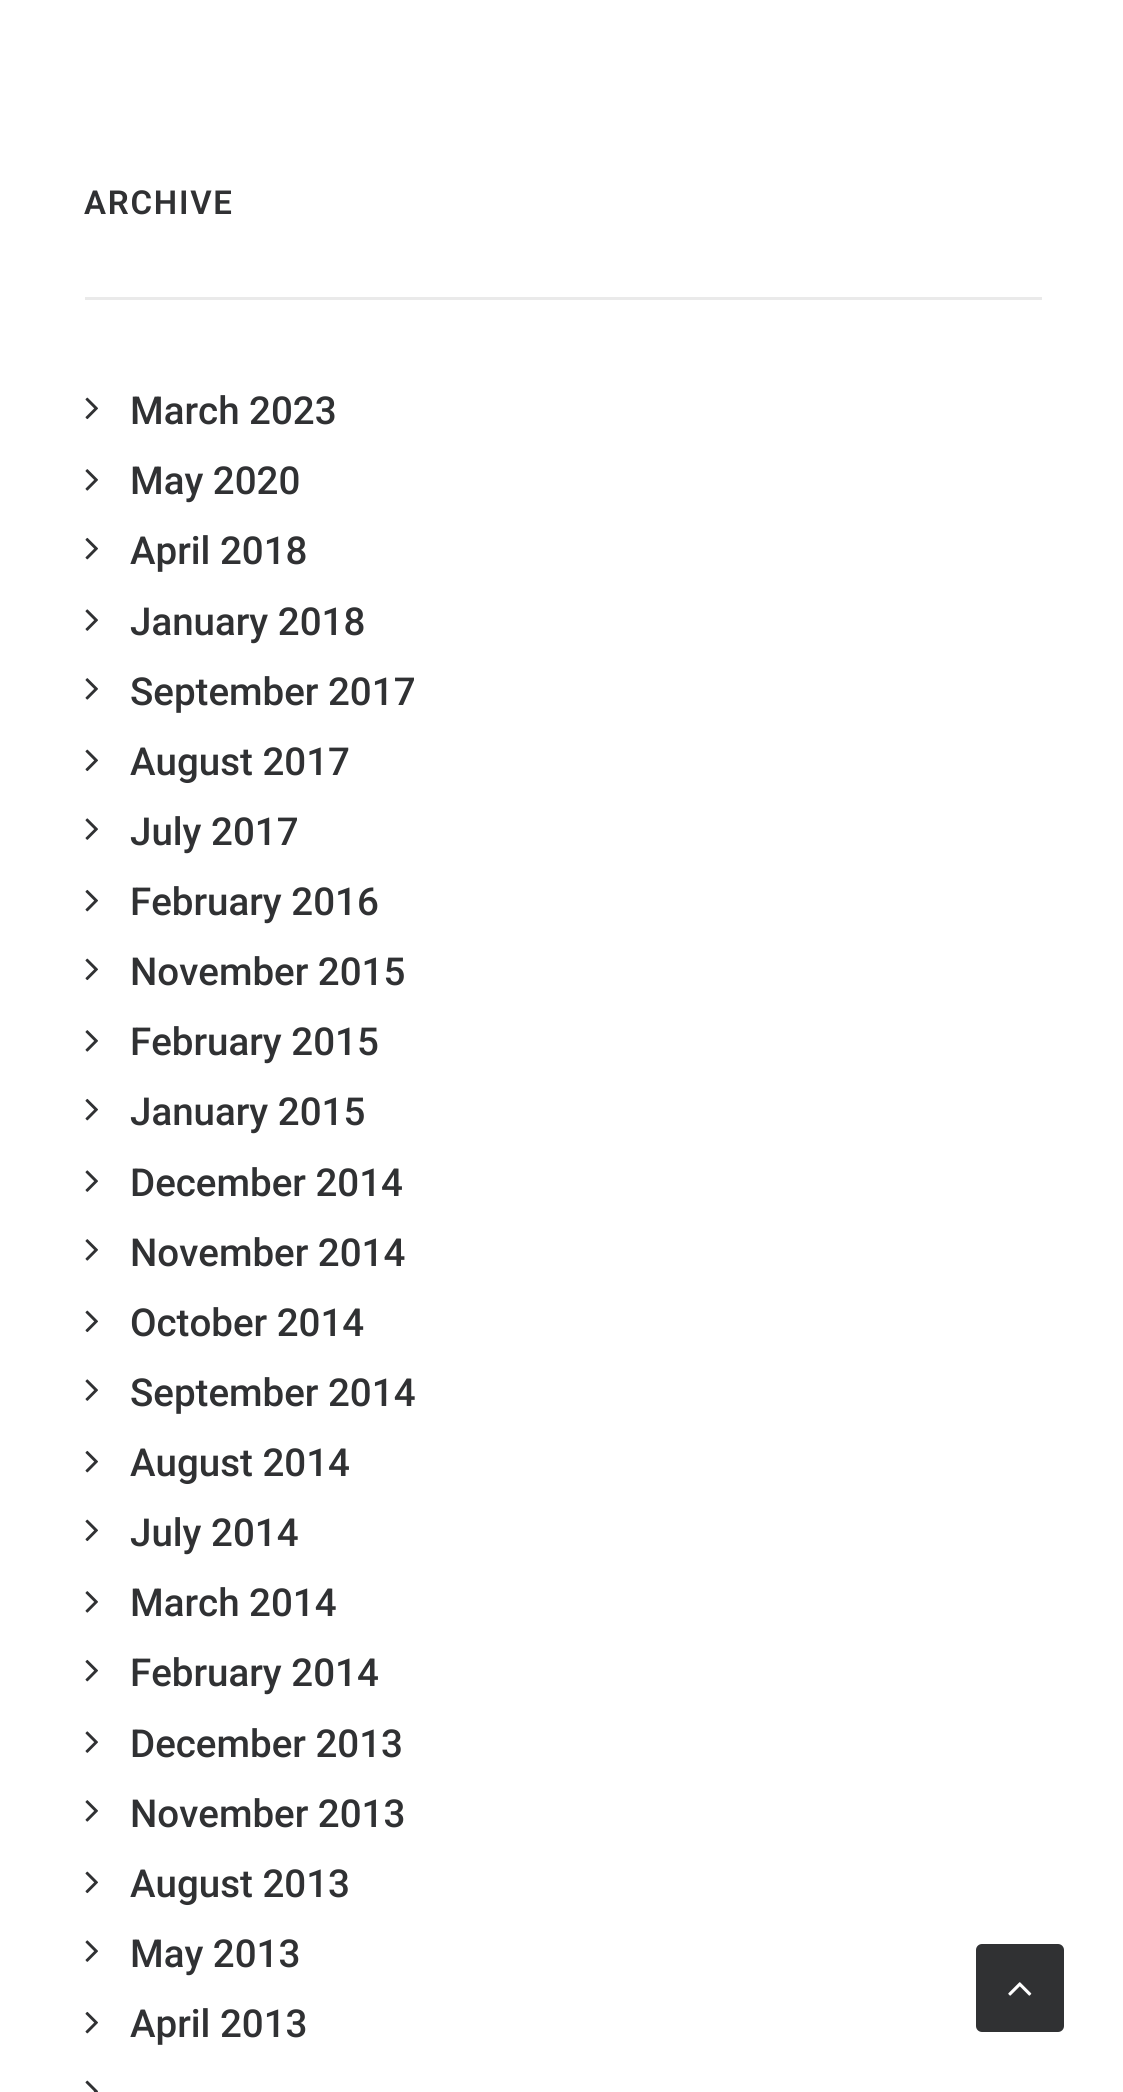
#include <cairo/cairo.h>
#include <math.h>
#include <stddef.h>


static void draw_spaced(cairo_t *cr, double x, double y, const char *s, double letter, double word) {
  cairo_move_to(cr, x, y);
  while (*s) {
    char ch[5] = {0};
    int n = 0;
    do ch[n++] = *s++; while ((*s & 0xC0) == 0x80);
    cairo_show_text(cr, ch);
    cairo_rel_move_to(cr, letter + word * (*ch == ' '), 0);
  }
}

static void rounded_rect(cairo_t *cr, double x, double y, double w, double h, double r) {
  cairo_new_sub_path(cr);
  cairo_arc(cr, x + w - r, y + h - r, r, 0, M_PI / 2);
  cairo_arc(cr, x + r, y + h - r, r, M_PI / 2, M_PI);
  cairo_arc(cr, x + r, y + r, r, M_PI, 1.5 * M_PI);
  cairo_arc(cr, x + w - r, y + r, r, 1.5 * M_PI, 2 * M_PI);
  cairo_close_path(cr);
}

static void draw_image(cairo_t *cr, const char *path, double x, double y, double w, double h) {
  cairo_surface_t *image = cairo_image_surface_create_from_png(path);
  cairo_save(cr);
  cairo_set_source_surface(cr, image, x, y);
  cairo_rectangle(cr, x, y, w, h);
  cairo_fill(cr);
  cairo_restore(cr);
  cairo_surface_destroy(image);
}

static void draw(cairo_t *cr) {
  cairo_set_source_rgb(cr, 1, 1, 1);
  cairo_paint(cr);
  cairo_set_source_rgb(cr, 234 / 255.0, 234 / 255.0, 234 / 255.0);
  cairo_rectangle(cr, 85, 297, 957, 3);
  cairo_fill(cr);
  draw_image(cr, "images/1.png", 85, 397, 13, 23);
  draw_image(cr, "images/2.png", 85, 469, 13, 22);
  draw_image(cr, "images/3.png", 85, 537, 13, 23);
  draw_image(cr, "images/4.png", 85, 609, 13, 22);
  draw_image(cr, "images/2.png", 85, 678, 13, 22);
  draw_image(cr, "images/1.png", 85, 749, 13, 23);
  draw_image(cr, "images/4.png", 85, 818, 13, 22);
  draw_image(cr, "images/3.png", 85, 889, 13, 23);
  draw_image(cr, "images/1.png", 85, 958, 13, 23);
  draw_image(cr, "images/2.png", 85, 1030, 13, 22);
  draw_image(cr, "images/3.png", 85, 1098, 13, 23);
  draw_image(cr, "images/4.png", 85, 1170, 13, 22);
  draw_image(cr, "images/2.png", 85, 1239, 13, 22);
  draw_image(cr, "images/1.png", 85, 1310, 13, 23);
  draw_image(cr, "images/4.png", 85, 1379, 13, 22);
  draw_image(cr, "images/3.png", 85, 1450, 13, 23);
  draw_image(cr, "images/1.png", 85, 1519, 13, 23);
  draw_image(cr, "images/2.png", 85, 1591, 13, 22);
  draw_image(cr, "images/3.png", 85, 1659, 13, 23);
  draw_image(cr, "images/4.png", 85, 1731, 13, 22);
  draw_image(cr, "images/2.png", 85, 1800, 13, 22);
  draw_image(cr, "images/1.png", 85, 1871, 13, 23);
  draw_image(cr, "images/4.png", 85, 1940, 13, 22);
  draw_image(cr, "images/3.png", 85, 2011, 13, 23);
  draw_image(cr, "images/5.png", 85, 2080, 13, 12);
  cairo_set_source_rgb(cr, 48 / 255.0, 49 / 255.0, 51 / 255.0);
  rounded_rect(cr, 977.5, 1945.5, 85, 85, 4.5);
  cairo_fill_preserve(cr);
  cairo_set_line_width(cr, 3);
  cairo_stroke(cr);
  draw_image(cr, "images/6.png", 1008, 1982, 24, 14);
  cairo_select_font_face(cr, "Roboto SemiBold", CAIRO_FONT_SLANT_NORMAL, CAIRO_FONT_WEIGHT_NORMAL);
  cairo_set_font_size(cr, 33);
  draw_spaced(cr, 84, 214, "ARCHIVE", 1.75, 0);
  cairo_select_font_face(cr, "Roboto Medium", CAIRO_FONT_SLANT_NORMAL, CAIRO_FONT_WEIGHT_NORMAL);
  cairo_set_font_size(cr, 38.5);
  cairo_move_to(cr, 130, 424);
  cairo_show_text(cr, "March 2023");
  cairo_move_to(cr, 130, 494);
  cairo_show_text(cr, "May 2020");
  cairo_move_to(cr, 130, 564);
  cairo_show_text(cr, "April 2018");
  cairo_move_to(cr, 130, 635);
  cairo_show_text(cr, "January 2018");
  cairo_move_to(cr, 130, 705);
  cairo_show_text(cr, "September 2017");
  cairo_move_to(cr, 130, 775);
  cairo_show_text(cr, "August 2017");
  cairo_move_to(cr, 130, 845);
  cairo_show_text(cr, "July 2017");
  cairo_move_to(cr, 130, 915);
  cairo_show_text(cr, "February 2016");
  cairo_move_to(cr, 130, 985);
  cairo_show_text(cr, "November 2015");
  cairo_move_to(cr, 130, 1055);
  cairo_show_text(cr, "February 2015");
  cairo_move_to(cr, 130, 1125);
  cairo_show_text(cr, "January 2015");
  cairo_move_to(cr, 130, 1196);
  cairo_show_text(cr, "December 2014");
  cairo_move_to(cr, 130, 1266);
  cairo_show_text(cr, "November 2014");
  cairo_move_to(cr, 130, 1336);
  cairo_show_text(cr, "October 2014");
  cairo_move_to(cr, 130, 1406);
  cairo_show_text(cr, "September 2014");
  cairo_move_to(cr, 130, 1476);
  cairo_show_text(cr, "August 2014");
  cairo_move_to(cr, 130, 1546);
  cairo_show_text(cr, "July 2014");
  cairo_move_to(cr, 130, 1616);
  cairo_show_text(cr, "March 2014");
  cairo_move_to(cr, 130, 1686);
  cairo_show_text(cr, "February 2014");
  cairo_move_to(cr, 130, 1757);
  cairo_show_text(cr, "December 2013");
  cairo_move_to(cr, 130, 1827);
  cairo_show_text(cr, "November 2013");
  cairo_move_to(cr, 130, 1897);
  cairo_show_text(cr, "August 2013");
  cairo_move_to(cr, 130, 1967);
  cairo_show_text(cr, "May 2013");
  cairo_move_to(cr, 130, 2037);
  cairo_show_text(cr, "April 2013");
}

int main(void) {
  cairo_surface_t *surface = cairo_image_surface_create(CAIRO_FORMAT_RGB24, 1123, 2092);
  cairo_t *cr = cairo_create(surface);
  cairo_font_options_t *options = cairo_font_options_create();
  cairo_font_options_set_hint_metrics(options, CAIRO_HINT_METRICS_OFF);
  cairo_font_options_set_hint_style(options, CAIRO_HINT_STYLE_NONE);
  cairo_set_font_options(cr, options);
  cairo_set_miter_limit(cr, 4);
  draw(cr);
  cairo_surface_write_to_png(surface, "out.png");
  cairo_font_options_destroy(options);
  cairo_destroy(cr);
  cairo_surface_destroy(surface);
  return 0;
}
